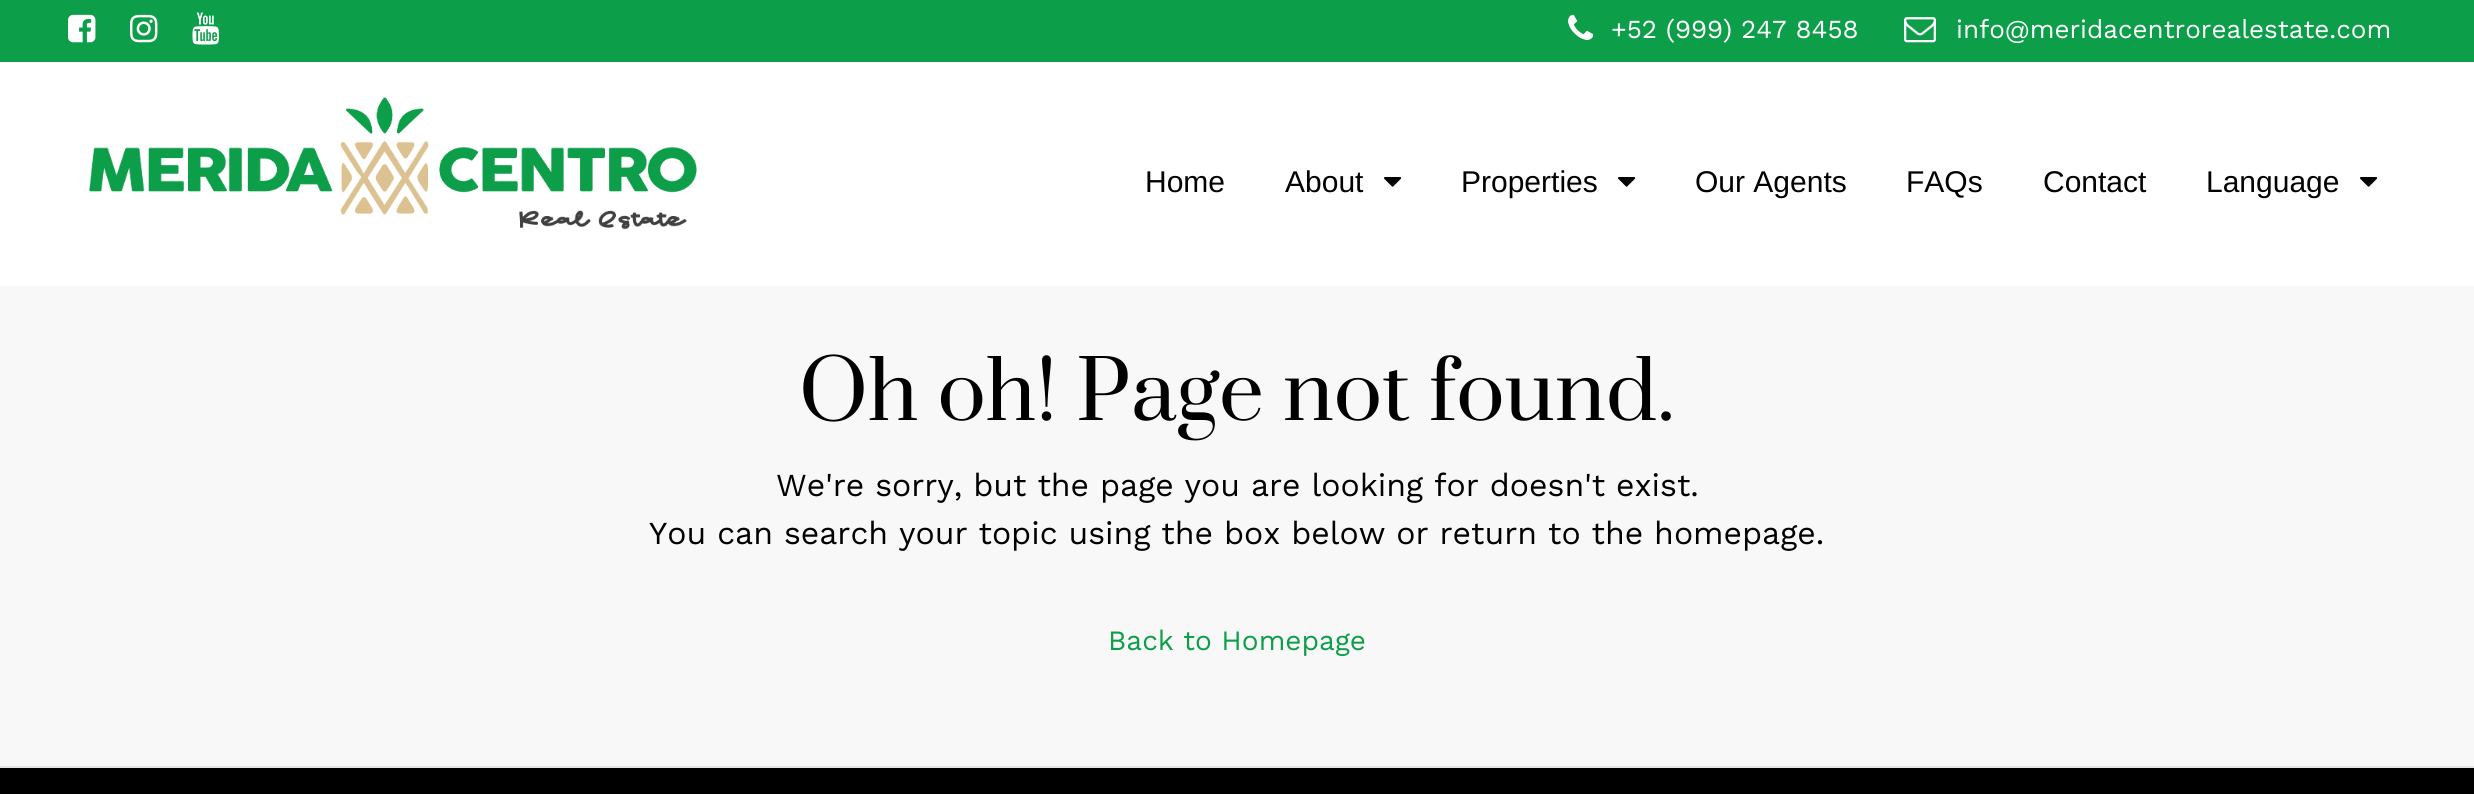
#include <cairo/cairo.h>
#include <math.h>
#include <stddef.h>


static void draw_image(cairo_t *cr, const char *path, double x, double y, double w, double h) {
  cairo_surface_t *image = cairo_image_surface_create_from_png(path);
  cairo_save(cr);
  cairo_set_source_surface(cr, image, x, y);
  cairo_rectangle(cr, x, y, w, h);
  cairo_fill(cr);
  cairo_restore(cr);
  cairo_surface_destroy(image);
}

static void draw(cairo_t *cr) {
  cairo_set_source_rgb(cr, 248 / 255.0, 248 / 255.0, 248 / 255.0);
  cairo_paint(cr);
  cairo_set_source_rgb(cr, 12 / 255.0, 158 / 255.0, 73 / 255.0);
  cairo_rectangle(cr, 0, 0, 2474, 62);
  cairo_fill(cr);
  draw_image(cr, "images/1.png", 68, 14, 28, 29);
  draw_image(cr, "images/2.png", 130, 14, 28, 29);
  draw_image(cr, "images/3.png", 192, 12, 27, 33);
  draw_image(cr, "images/4.png", 1568, 14, 26, 26);
  draw_image(cr, "images/5.png", 1904, 17, 32, 26);
  cairo_set_source_rgb(cr, 1, 1, 1);
  cairo_rectangle(cr, 0, 62, 2474, 224);
  cairo_fill(cr);
  draw_image(cr, "images/6.png", 89, 97, 608, 133);
  draw_image(cr, "images/7.png", 1384, 177, 18, 10);
  draw_image(cr, "images/7.png", 1618, 177, 18, 10);
  draw_image(cr, "images/7.png", 2360, 177, 18, 10);
  cairo_set_source_rgb(cr, 0, 0, 0);
  cairo_rectangle(cr, 0, 768, 2474, 26);
  cairo_fill(cr);
  cairo_set_source_rgb(cr, 229 / 255.0, 229 / 255.0, 229 / 255.0);
  cairo_rectangle(cr, 0, 766, 2474, 2);
  cairo_fill(cr);
  cairo_select_font_face(cr, "Work Sans", CAIRO_FONT_SLANT_NORMAL, CAIRO_FONT_WEIGHT_NORMAL);
  cairo_set_font_size(cr, 26);
  cairo_set_source_rgb(cr, 1, 1, 1);
  cairo_move_to(cr, 1611, 38);
  cairo_show_text(cr, "+52 (999) 247 8458");
  cairo_move_to(cr, 1956, 38);
  cairo_show_text(cr, "info@meridacentrorealestate.com");
  cairo_select_font_face(cr, "Liberation Sans", CAIRO_FONT_SLANT_NORMAL, CAIRO_FONT_WEIGHT_NORMAL);
  cairo_set_font_size(cr, 30);
  cairo_set_source_rgb(cr, 0, 0, 0);
  cairo_move_to(cr, 1145, 192);
  cairo_show_text(cr, "Home");
  cairo_move_to(cr, 1285, 192);
  cairo_show_text(cr, "About");
  cairo_move_to(cr, 1461, 192);
  cairo_show_text(cr, "Properties");
  cairo_move_to(cr, 1695, 192);
  cairo_show_text(cr, "Our Agents");
  cairo_move_to(cr, 1906, 192);
  cairo_show_text(cr, "FAQs");
  cairo_move_to(cr, 2043, 192);
  cairo_show_text(cr, "Contact");
  cairo_move_to(cr, 2206, 192);
  cairo_show_text(cr, "Language");
  cairo_select_font_face(cr, "Prata", CAIRO_FONT_SLANT_NORMAL, CAIRO_FONT_WEIGHT_NORMAL);
  cairo_set_font_size(cr, 80);
  cairo_move_to(cr, 799, 420);
  cairo_show_text(cr, "Oh oh! Page not found.");
  cairo_select_font_face(cr, "Work Sans", CAIRO_FONT_SLANT_NORMAL, CAIRO_FONT_WEIGHT_NORMAL);
  cairo_set_font_size(cr, 32);
  cairo_move_to(cr, 776, 496);
  cairo_show_text(cr, "We're sorry, but the page you are looking for doesn't exist.");
  cairo_move_to(cr, 649, 544);
  cairo_show_text(cr, "You can search your topic using the box below or return to the homepage.");
  cairo_set_font_size(cr, 28);
  cairo_set_source_rgb(cr, 12 / 255.0, 158 / 255.0, 73 / 255.0);
  cairo_move_to(cr, 1108, 650);
  cairo_show_text(cr, "Back to Homepage");
}

int main(void) {
  cairo_surface_t *surface = cairo_image_surface_create(CAIRO_FORMAT_RGB24, 2474, 794);
  cairo_t *cr = cairo_create(surface);
  cairo_font_options_t *options = cairo_font_options_create();
  cairo_font_options_set_hint_metrics(options, CAIRO_HINT_METRICS_OFF);
  cairo_font_options_set_hint_style(options, CAIRO_HINT_STYLE_NONE);
  cairo_set_font_options(cr, options);
  cairo_set_miter_limit(cr, 4);
  draw(cr);
  cairo_surface_write_to_png(surface, "out.png");
  cairo_font_options_destroy(options);
  cairo_destroy(cr);
  cairo_surface_destroy(surface);
  return 0;
}
